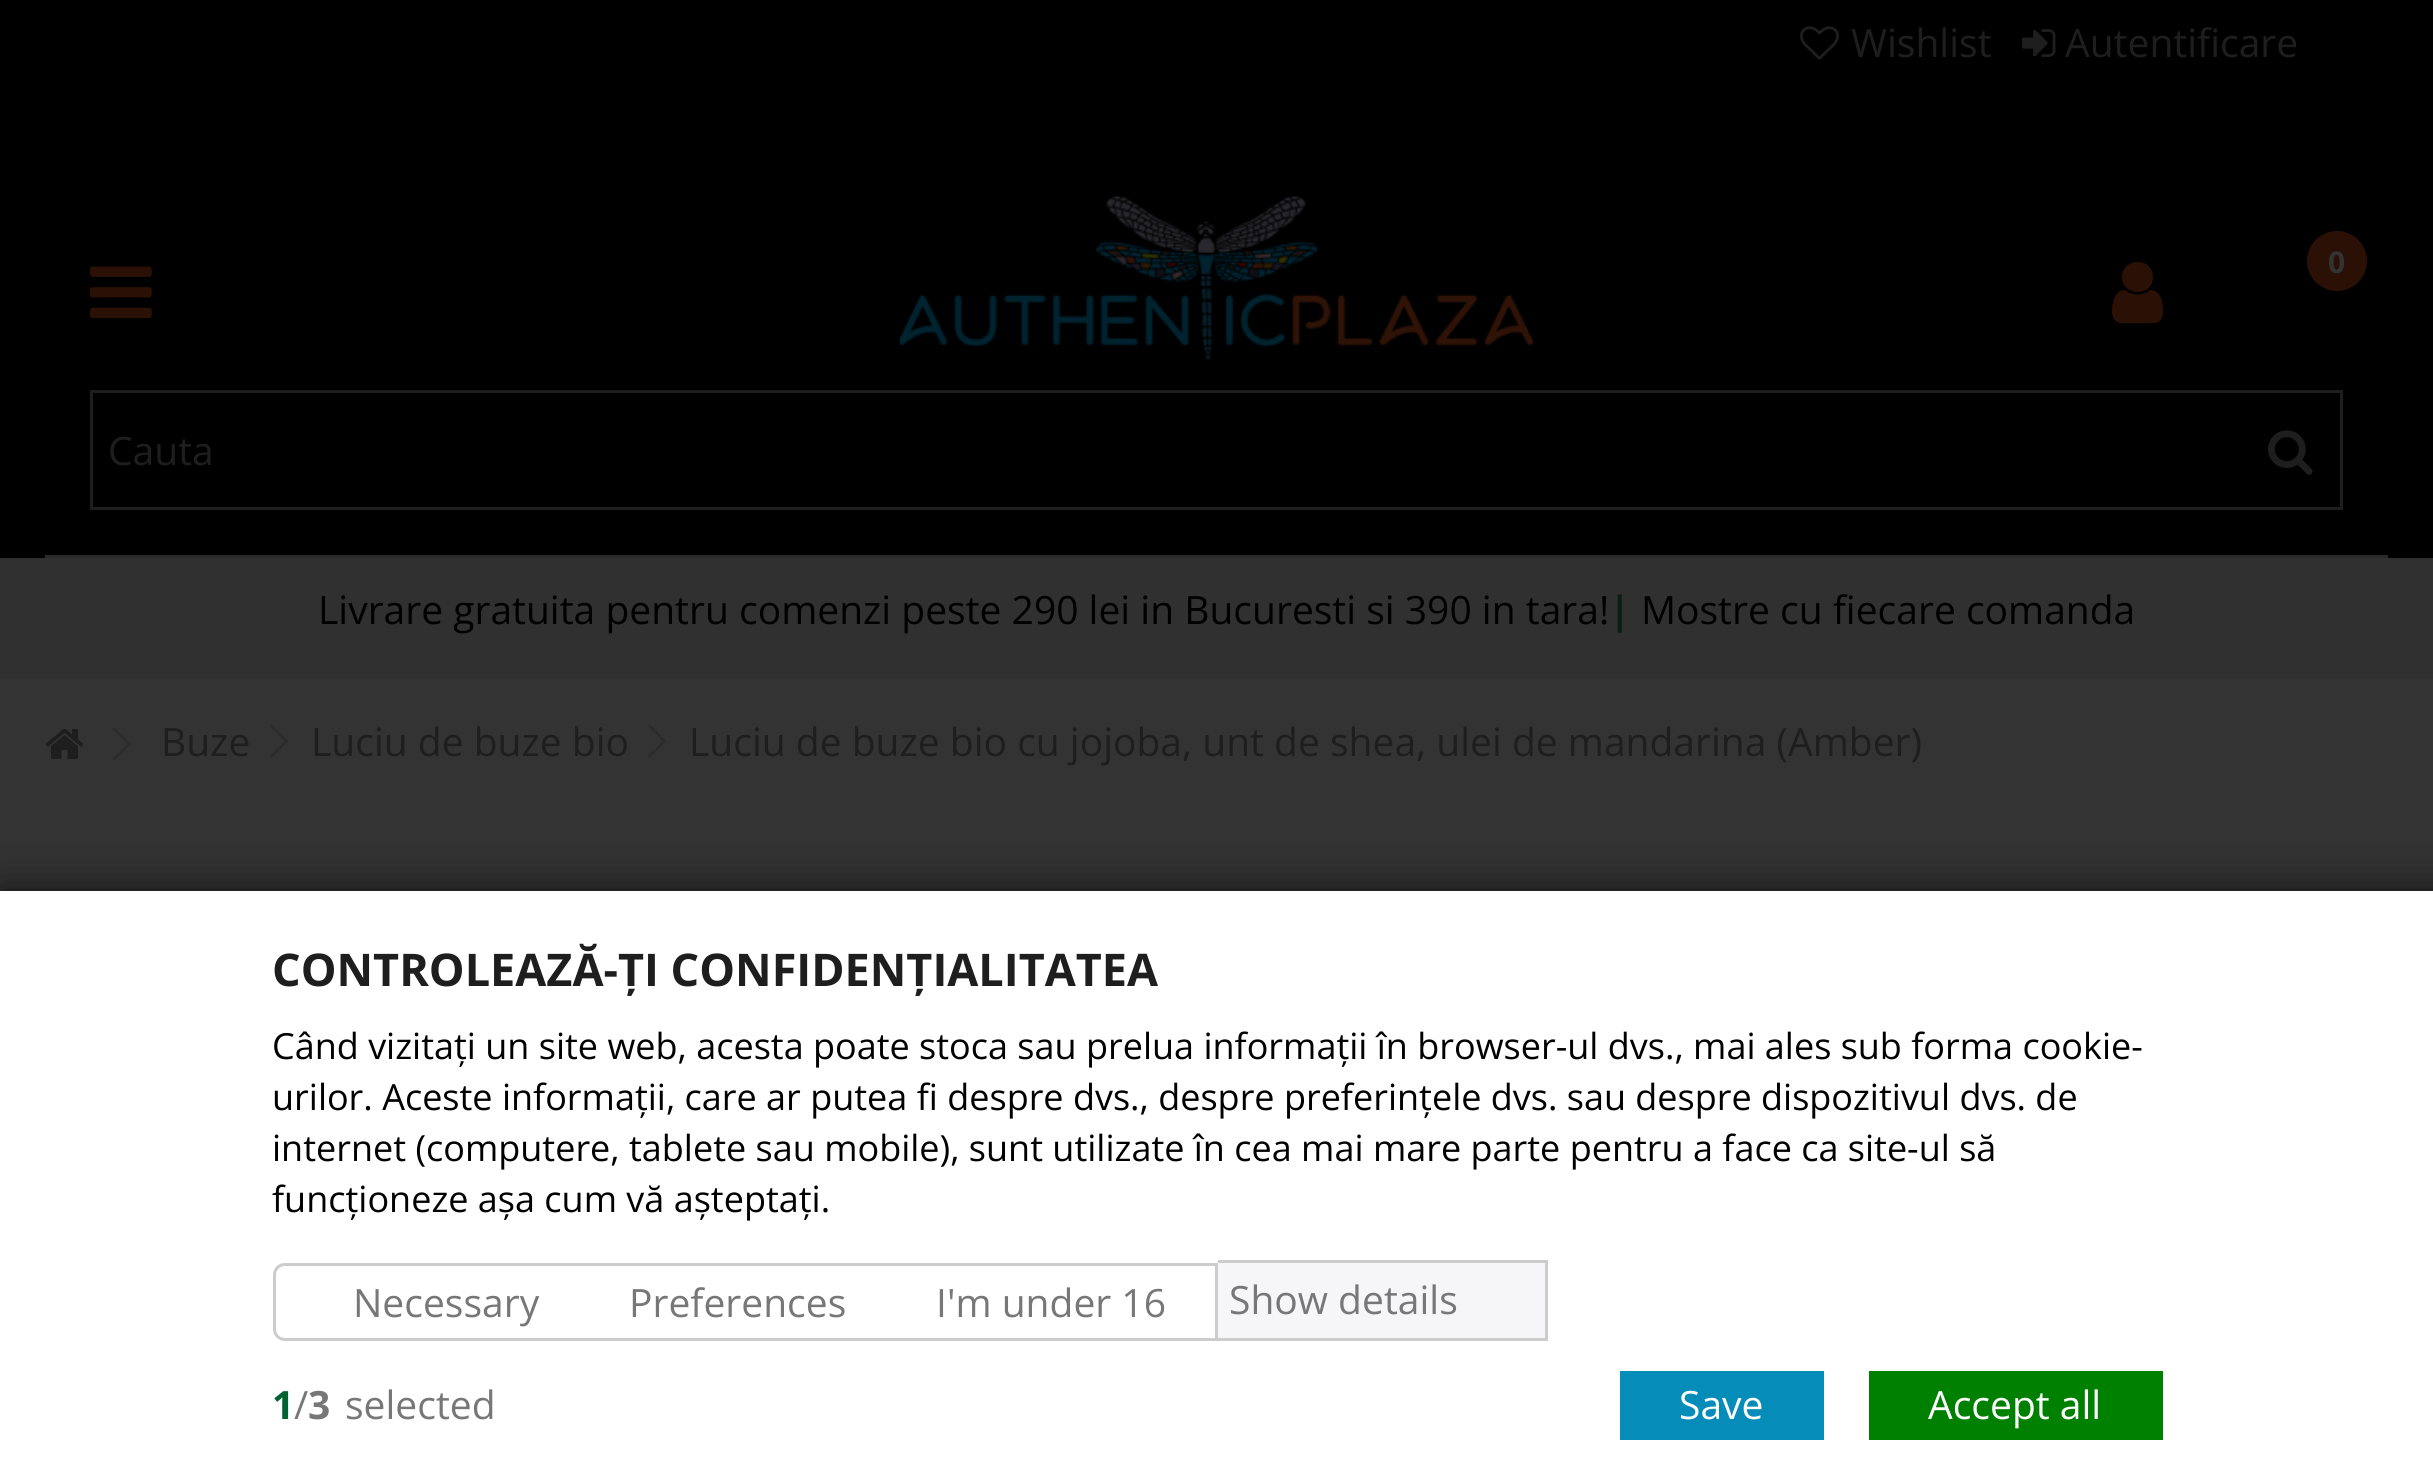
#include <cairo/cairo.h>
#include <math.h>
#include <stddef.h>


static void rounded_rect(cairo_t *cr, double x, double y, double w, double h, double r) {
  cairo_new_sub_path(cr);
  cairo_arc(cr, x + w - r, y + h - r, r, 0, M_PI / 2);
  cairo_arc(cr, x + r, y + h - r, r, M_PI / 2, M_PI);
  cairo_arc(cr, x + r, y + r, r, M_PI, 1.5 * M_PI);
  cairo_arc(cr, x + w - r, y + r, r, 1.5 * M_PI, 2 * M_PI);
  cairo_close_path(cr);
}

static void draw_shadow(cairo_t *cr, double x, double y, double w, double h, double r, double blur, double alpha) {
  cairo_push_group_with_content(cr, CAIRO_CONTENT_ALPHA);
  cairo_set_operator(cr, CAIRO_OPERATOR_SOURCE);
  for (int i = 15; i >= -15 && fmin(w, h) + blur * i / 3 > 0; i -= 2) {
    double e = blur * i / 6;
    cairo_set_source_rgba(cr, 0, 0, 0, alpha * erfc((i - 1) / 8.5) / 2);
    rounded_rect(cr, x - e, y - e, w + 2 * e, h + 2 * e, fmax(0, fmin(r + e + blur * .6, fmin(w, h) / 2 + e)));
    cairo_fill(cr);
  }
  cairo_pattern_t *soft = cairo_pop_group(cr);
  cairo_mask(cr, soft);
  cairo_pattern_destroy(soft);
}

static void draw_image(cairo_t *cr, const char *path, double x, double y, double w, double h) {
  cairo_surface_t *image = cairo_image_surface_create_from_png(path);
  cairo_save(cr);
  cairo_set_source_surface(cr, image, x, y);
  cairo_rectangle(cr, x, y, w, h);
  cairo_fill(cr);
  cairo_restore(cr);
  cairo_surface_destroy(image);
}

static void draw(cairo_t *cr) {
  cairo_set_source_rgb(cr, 51 / 255.0, 51 / 255.0, 51 / 255.0);
  cairo_paint(cr);
  cairo_set_source_rgb(cr, 0, 0, 0);
  cairo_rectangle(cr, 0, 0, 2433, 558);
  cairo_fill(cr);
  draw_image(cr, "images/1.png", 1800, 26, 39, 34);
  draw_image(cr, "images/2.png", 2022, 29, 34, 28);
  cairo_set_source_rgb(cr, 43 / 255.0, 42 / 255.0, 42 / 255.0);
  cairo_rectangle(cr, 45, 555, 2343, 3);
  cairo_fill(cr);
  draw_image(cr, "images/3.png", 90, 266, 62, 52);
  draw_image(cr, "images/4.png", 900, 196, 633, 164);
  cairo_set_source_rgb(cr, 43 / 255.0, 16 / 255.0, 6 / 255.0);
  cairo_new_path(cr);
  cairo_move_to(cr, 2163, 312);
  cairo_curve_to(cr, 2163, 302, 2161, 290, 2150, 290);
  cairo_curve_to(cr, 2143, 296, 2132, 296, 2125, 290);
  cairo_curve_to(cr, 2115, 290, 2112, 302, 2112, 312);
  cairo_curve_to(cr, 2112, 318, 2116, 323, 2121, 323);
  cairo_line_to(cr, 2155, 323);
  cairo_curve_to(cr, 2160, 323, 2163, 318, 2163, 312);
  cairo_close_path(cr);
  cairo_move_to(cr, 2153, 277);
  cairo_curve_to(cr, 2153, 257, 2122, 257, 2122, 277);
  cairo_curve_to(cr, 2122, 297, 2153, 297, 2153, 277);
  cairo_close_path(cr);
  cairo_fill(cr);
  cairo_arc(cr, 2337, 261, 30, 0, 2 * M_PI);
  cairo_fill(cr);
  cairo_rectangle(cr, 91.5, 391.5, 2250, 117);
  cairo_set_source_rgb(cr, 30 / 255.0, 30 / 255.0, 30 / 255.0);
  cairo_set_line_width(cr, 3);
  cairo_stroke(cr);
  draw_image(cr, "images/5.png", 2268, 430, 45, 45);
  cairo_set_source_rgb(cr, 48 / 255.0, 48 / 255.0, 48 / 255.0);
  cairo_rectangle(cr, 0, 558, 2433, 120);
  cairo_fill(cr);
  draw_image(cr, "images/6.png", 45, 729, 39, 30);
  cairo_set_source_rgb(cr, 44 / 255.0, 44 / 255.0, 44 / 255.0);
  cairo_new_path(cr);
  cairo_move_to(cr, 114, 727);
  cairo_line_to(cr, 131, 744);
  cairo_line_to(cr, 129, 746);
  cairo_line_to(cr, 112, 729);
  cairo_close_path(cr);
  cairo_fill(cr);
  cairo_new_path(cr);
  cairo_move_to(cr, 129, 742);
  cairo_line_to(cr, 131, 744);
  cairo_line_to(cr, 114, 761);
  cairo_line_to(cr, 112, 759);
  cairo_close_path(cr);
  cairo_fill(cr);
  cairo_new_path(cr);
  cairo_move_to(cr, 271.5, 724);
  cairo_line_to(cr, 288.5, 741);
  cairo_line_to(cr, 286.5, 743);
  cairo_line_to(cr, 269.5, 726);
  cairo_close_path(cr);
  cairo_fill(cr);
  cairo_new_path(cr);
  cairo_move_to(cr, 286.5, 739);
  cairo_line_to(cr, 288.5, 741);
  cairo_line_to(cr, 271.5, 758);
  cairo_line_to(cr, 269.5, 756);
  cairo_close_path(cr);
  cairo_fill(cr);
  cairo_new_path(cr);
  cairo_move_to(cr, 649.5, 724);
  cairo_line_to(cr, 666.5, 741);
  cairo_line_to(cr, 664.5, 743);
  cairo_line_to(cr, 647.5, 726);
  cairo_close_path(cr);
  cairo_fill(cr);
  cairo_new_path(cr);
  cairo_move_to(cr, 664.5, 739);
  cairo_line_to(cr, 666.5, 741);
  cairo_line_to(cr, 649.5, 758);
  cairo_line_to(cr, 647.5, 756);
  cairo_close_path(cr);
  cairo_fill(cr);
  cairo_set_source_rgb(cr, 18 / 255.0, 18 / 255.0, 18 / 255.0);
  draw_shadow(cr, 0, 891, 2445, 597, 0, 21, 1);
  cairo_set_source_rgb(cr, 1, 1, 1);
  cairo_rectangle(cr, 0, 891, 2433, 585);
  cairo_fill(cr);
  cairo_new_path(cr);
  cairo_move_to(cr, 285, 1264.5);
  cairo_line_to(cr, 1216.5, 1264.5);
  cairo_line_to(cr, 1216.5, 1339.5);
  cairo_line_to(cr, 285, 1339.5);
  cairo_curve_to(cr, 279, 1339.5, 274.5, 1335, 274.5, 1329);
  cairo_line_to(cr, 274.5, 1275);
  cairo_curve_to(cr, 274.5, 1269, 279, 1264.5, 285, 1264.5);
  cairo_close_path(cr);
  cairo_set_source_rgb(cr, 204 / 255.0, 204 / 255.0, 204 / 255.0);
  cairo_stroke(cr);
  cairo_set_source_rgb(cr, 246 / 255.0, 246 / 255.0, 249 / 255.0);
  cairo_rectangle(cr, 1218, 1263, 327, 75);
  cairo_fill(cr);
  cairo_set_source_rgb(cr, 204 / 255.0, 204 / 255.0, 204 / 255.0);
  cairo_rectangle(cr, 1218, 1260, 330, 3);
  cairo_fill(cr);
  cairo_rectangle(cr, 1545, 1260, 3, 81);
  cairo_fill(cr);
  cairo_rectangle(cr, 1218, 1338, 330, 3);
  cairo_fill(cr);
  cairo_set_source_rgb(cr, 6 / 255.0, 140 / 255.0, 185 / 255.0);
  cairo_rectangle(cr, 1620, 1371, 204, 69);
  cairo_fill(cr);
  cairo_set_source_rgb(cr, 0, 128 / 255.0, 0);
  cairo_rectangle(cr, 1869, 1371, 294, 69);
  cairo_fill(cr);
  cairo_select_font_face(cr, "Open Sans", CAIRO_FONT_SLANT_NORMAL, CAIRO_FONT_WEIGHT_NORMAL);
  cairo_set_font_size(cr, 39);
  cairo_set_source_rgb(cr, 30 / 255.0, 30 / 255.0, 30 / 255.0);
  cairo_move_to(cr, 1851, 57);
  cairo_show_text(cr, "Wishlist");
  cairo_move_to(cr, 2065, 57);
  cairo_show_text(cr, "Autentificare");
  cairo_select_font_face(cr, "Open Sans", CAIRO_FONT_SLANT_NORMAL, CAIRO_FONT_WEIGHT_BOLD);
  cairo_set_font_size(cr, 30);
  cairo_set_source_rgb(cr, 51 / 255.0, 51 / 255.0, 51 / 255.0);
  cairo_move_to(cr, 2328, 273);
  cairo_show_text(cr, "0");
  cairo_select_font_face(cr, "Open Sans", CAIRO_FONT_SLANT_NORMAL, CAIRO_FONT_WEIGHT_NORMAL);
  cairo_set_font_size(cr, 39);
  cairo_set_source_rgb(cr, 30 / 255.0, 30 / 255.0, 30 / 255.0);
  cairo_move_to(cr, 108, 465);
  cairo_show_text(cr, "Cauta");
  cairo_set_source_rgb(cr, 0, 0, 0);
  cairo_move_to(cr, 318, 624);
  cairo_show_text(cr, "Livrare gratuita pentru comenzi peste 290 lei in Bucuresti si 390 in tara!");
  cairo_select_font_face(cr, "Open Sans", CAIRO_FONT_SLANT_NORMAL, CAIRO_FONT_WEIGHT_BOLD);
  cairo_set_source_rgb(cr, 10 / 255.0, 31 / 255.0, 20 / 255.0);
  cairo_move_to(cr, 1609, 624);
  cairo_show_text(cr, "|");
  cairo_select_font_face(cr, "Open Sans", CAIRO_FONT_SLANT_NORMAL, CAIRO_FONT_WEIGHT_NORMAL);
  cairo_set_source_rgb(cr, 0, 0, 0);
  cairo_move_to(cr, 1641, 624);
  cairo_show_text(cr, "Mostre cu fiecare comanda");
  cairo_set_source_rgb(cr, 30 / 255.0, 30 / 255.0, 30 / 255.0);
  cairo_move_to(cr, 161, 756);
  cairo_show_text(cr, "Buze");
  cairo_move_to(cr, 311, 756);
  cairo_show_text(cr, "Luciu de buze bio");
  cairo_move_to(cr, 689, 756);
  cairo_show_text(cr, "Luciu de buze bio cu jojoba, unt de shea, ulei de mandarina (Amber)");
  cairo_select_font_face(cr, "Open Sans", CAIRO_FONT_SLANT_NORMAL, CAIRO_FONT_WEIGHT_BOLD);
  cairo_set_font_size(cr, 45);
  cairo_move_to(cr, 272, 986);
  cairo_show_text(cr, "CONTROLEAZĂ-ȚI CONFIDENȚIALITATEA");
  cairo_select_font_face(cr, "Open Sans", CAIRO_FONT_SLANT_NORMAL, CAIRO_FONT_WEIGHT_NORMAL);
  cairo_set_font_size(cr, 36);
  cairo_set_source_rgb(cr, 0, 0, 0);
  cairo_move_to(cr, 272, 1059);
  cairo_show_text(cr, "Când vizitați un site web, acesta poate stoca sau prelua informații în browser-ul dvs., mai ales sub forma cookie-");
  cairo_move_to(cr, 272, 1110);
  cairo_show_text(cr, "urilor. Aceste informații, care ar putea fi despre dvs., despre preferințele dvs. sau despre dispozitivul dvs. de");
  cairo_move_to(cr, 272, 1161);
  cairo_show_text(cr, "internet (computere, tablete sau mobile), sunt utilizate în cea mai mare parte pentru a face ca site-ul să");
  cairo_move_to(cr, 272, 1212);
  cairo_show_text(cr, "funcționeze așa cum vă așteptați.");
  cairo_set_font_size(cr, 39);
  cairo_set_source_rgb(cr, 119 / 255.0, 119 / 255.0, 119 / 255.0);
  cairo_move_to(cr, 353, 1317);
  cairo_show_text(cr, "Necessary");
  cairo_move_to(cr, 629, 1317);
  cairo_show_text(cr, "Preferences");
  cairo_move_to(cr, 936, 1317);
  cairo_show_text(cr, "I'm under 16");
  cairo_move_to(cr, 1229, 1314);
  cairo_show_text(cr, "Show details");
  cairo_select_font_face(cr, "Open Sans", CAIRO_FONT_SLANT_NORMAL, CAIRO_FONT_WEIGHT_BOLD);
  cairo_set_source_rgb(cr, 0, 97 / 255.0, 49 / 255.0);
  cairo_move_to(cr, 272, 1419);
  cairo_show_text(cr, "1");
  cairo_select_font_face(cr, "Open Sans", CAIRO_FONT_SLANT_NORMAL, CAIRO_FONT_WEIGHT_NORMAL);
  cairo_set_source_rgb(cr, 119 / 255.0, 119 / 255.0, 119 / 255.0);
  cairo_move_to(cr, 294, 1419);
  cairo_show_text(cr, "/");
  cairo_select_font_face(cr, "Open Sans", CAIRO_FONT_SLANT_NORMAL, CAIRO_FONT_WEIGHT_BOLD);
  cairo_move_to(cr, 308, 1419);
  cairo_show_text(cr, "3");
  cairo_select_font_face(cr, "Open Sans", CAIRO_FONT_SLANT_NORMAL, CAIRO_FONT_WEIGHT_NORMAL);
  cairo_move_to(cr, 345, 1419);
  cairo_show_text(cr, "selected");
  cairo_set_source_rgb(cr, 1, 1, 1);
  cairo_move_to(cr, 1679, 1419);
  cairo_show_text(cr, "Save");
  cairo_move_to(cr, 1928, 1419);
  cairo_show_text(cr, "Accept all");
}

int main(void) {
  cairo_surface_t *surface = cairo_image_surface_create(CAIRO_FORMAT_RGB24, 2433, 1476);
  cairo_t *cr = cairo_create(surface);
  cairo_font_options_t *options = cairo_font_options_create();
  cairo_font_options_set_hint_metrics(options, CAIRO_HINT_METRICS_OFF);
  cairo_font_options_set_hint_style(options, CAIRO_HINT_STYLE_NONE);
  cairo_set_font_options(cr, options);
  cairo_set_miter_limit(cr, 4);
  draw(cr);
  cairo_surface_write_to_png(surface, "out.png");
  cairo_font_options_destroy(options);
  cairo_destroy(cr);
  cairo_surface_destroy(surface);
  return 0;
}
